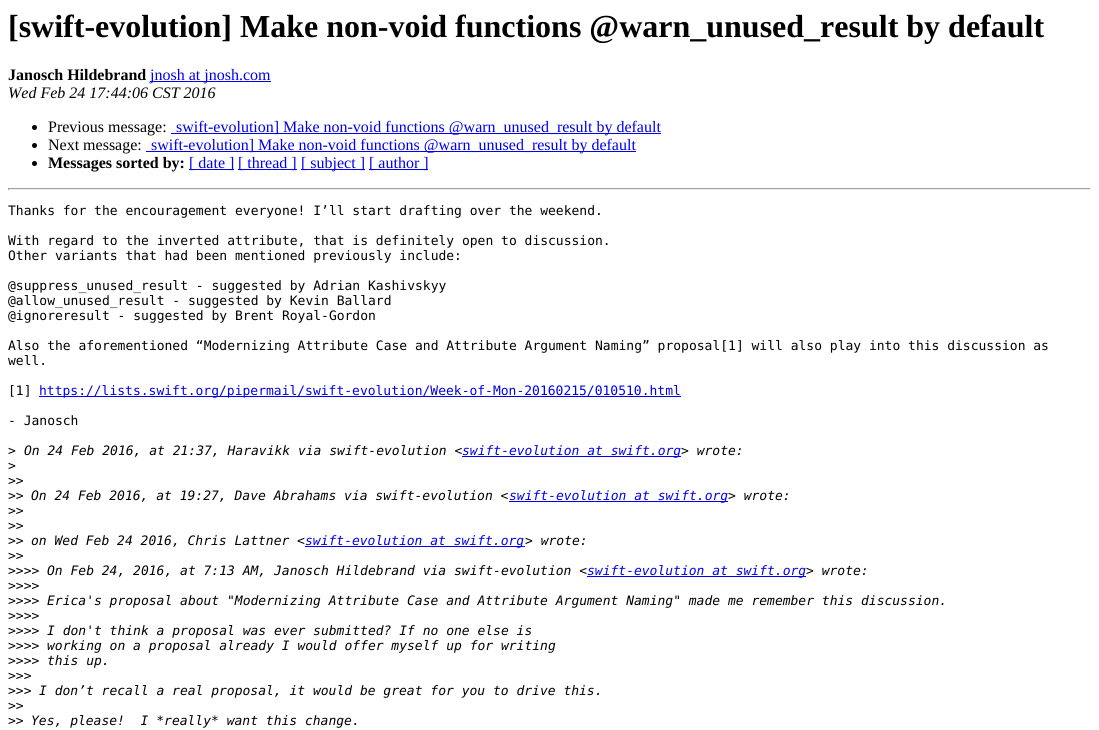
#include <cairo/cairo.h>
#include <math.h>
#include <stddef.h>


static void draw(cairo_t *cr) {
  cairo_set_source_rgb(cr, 1, 1, 1);
  cairo_paint(cr);
  cairo_set_source_rgb(cr, 0, 0, 238 / 255.0);
  cairo_rectangle(cr, 150, 81, 121, 1);
  cairo_fill(cr);
  cairo_set_source_rgb(cr, 0, 0, 0);
  cairo_arc(cr, 34.5, 127.5, 2.5, 0, 2 * M_PI);
  cairo_fill(cr);
  cairo_set_source_rgb(cr, 0, 0, 238 / 255.0);
  cairo_rectangle(cr, 171, 133, 490, 1);
  cairo_fill(cr);
  cairo_set_source_rgb(cr, 0, 0, 0);
  cairo_arc(cr, 34.5, 145.5, 2.5, 0, 2 * M_PI);
  cairo_fill(cr);
  cairo_set_source_rgb(cr, 0, 0, 238 / 255.0);
  cairo_rectangle(cr, 146, 151, 490, 1);
  cairo_fill(cr);
  cairo_set_source_rgb(cr, 0, 0, 0);
  cairo_arc(cr, 34.5, 163.5, 2.5, 0, 2 * M_PI);
  cairo_fill(cr);
  cairo_set_source_rgb(cr, 0, 0, 238 / 255.0);
  cairo_rectangle(cr, 189, 169, 45, 1);
  cairo_fill(cr);
  cairo_rectangle(cr, 238, 169, 59, 1);
  cairo_fill(cr);
  cairo_rectangle(cr, 301, 169, 64, 1);
  cairo_fill(cr);
  cairo_rectangle(cr, 369, 169, 59, 1);
  cairo_fill(cr);
  cairo_set_source_rgb(cr, 159 / 255.0, 159 / 255.0, 159 / 255.0);
  cairo_rectangle(cr, 8, 188, 1083, 1);
  cairo_fill(cr);
  cairo_set_source_rgb(cr, 238 / 255.0, 238 / 255.0, 238 / 255.0);
  cairo_rectangle(cr, 1090, 188, 1, 2);
  cairo_fill(cr);
  cairo_rectangle(cr, 8, 189, 1083, 1);
  cairo_fill(cr);
  cairo_set_source_rgb(cr, 159 / 255.0, 159 / 255.0, 159 / 255.0);
  cairo_rectangle(cr, 8, 188, 1, 2);
  cairo_fill(cr);
  cairo_set_source_rgb(cr, 0, 0, 238 / 255.0);
  cairo_rectangle(cr, 39, 396, 642, 1);
  cairo_fill(cr);
  cairo_rectangle(cr, 462, 456, 219, 1);
  cairo_fill(cr);
  cairo_rectangle(cr, 509, 501, 219, 1);
  cairo_fill(cr);
  cairo_rectangle(cr, 305, 546, 220, 1);
  cairo_fill(cr);
  cairo_rectangle(cr, 587, 576, 219, 1);
  cairo_fill(cr);
  cairo_select_font_face(cr, "Liberation Serif", CAIRO_FONT_SLANT_NORMAL, CAIRO_FONT_WEIGHT_BOLD);
  cairo_set_font_size(cr, 32);
  cairo_set_source_rgb(cr, 0, 0, 0);
  cairo_move_to(cr, 8, 37);
  cairo_show_text(cr, "[swift-evolution] Make non-void functions @warn_unused_result by default");
  cairo_set_font_size(cr, 16);
  cairo_move_to(cr, 8, 80);
  cairo_show_text(cr, "Janosch Hildebrand");
  cairo_select_font_face(cr, "Liberation Serif", CAIRO_FONT_SLANT_NORMAL, CAIRO_FONT_WEIGHT_NORMAL);
  cairo_set_source_rgb(cr, 0, 0, 238 / 255.0);
  cairo_move_to(cr, 150, 80);
  cairo_show_text(cr, "jnosh at jnosh.com");
  cairo_select_font_face(cr, "Liberation Serif", CAIRO_FONT_SLANT_ITALIC, CAIRO_FONT_WEIGHT_NORMAL);
  cairo_set_source_rgb(cr, 0, 0, 0);
  cairo_move_to(cr, 8, 98);
  cairo_show_text(cr, "Wed Feb 24 17:44:06 CST 2016");
  cairo_select_font_face(cr, "Liberation Serif", CAIRO_FONT_SLANT_NORMAL, CAIRO_FONT_WEIGHT_NORMAL);
  cairo_move_to(cr, 48, 132);
  cairo_show_text(cr, "Previous message:");
  cairo_set_source_rgb(cr, 0, 0, 238 / 255.0);
  cairo_move_to(cr, 176, 132);
  cairo_show_text(cr, "swift-evolution] Make non-void functions @warn_unused_result by default");
  cairo_set_source_rgb(cr, 0, 0, 0);
  cairo_move_to(cr, 48, 150);
  cairo_show_text(cr, "Next message:");
  cairo_set_source_rgb(cr, 0, 0, 238 / 255.0);
  cairo_move_to(cr, 151, 150);
  cairo_show_text(cr, "swift-evolution] Make non-void functions @warn_unused_result by default");
  cairo_select_font_face(cr, "Liberation Serif", CAIRO_FONT_SLANT_NORMAL, CAIRO_FONT_WEIGHT_BOLD);
  cairo_set_source_rgb(cr, 0, 0, 0);
  cairo_move_to(cr, 48, 168);
  cairo_show_text(cr, "Messages sorted by:");
  cairo_select_font_face(cr, "Liberation Serif", CAIRO_FONT_SLANT_NORMAL, CAIRO_FONT_WEIGHT_NORMAL);
  cairo_set_source_rgb(cr, 0, 0, 238 / 255.0);
  cairo_move_to(cr, 189, 168);
  cairo_show_text(cr, "[ date ]");
  cairo_move_to(cr, 238, 168);
  cairo_show_text(cr, "[ thread ]");
  cairo_move_to(cr, 301, 168);
  cairo_show_text(cr, "[ subject ]");
  cairo_move_to(cr, 369, 168);
  cairo_show_text(cr, "[ author ]");
  cairo_select_font_face(cr, "DejaVu Sans Mono", CAIRO_FONT_SLANT_NORMAL, CAIRO_FONT_WEIGHT_NORMAL);
  cairo_set_font_size(cr, 13);
  cairo_set_source_rgb(cr, 0, 0, 0);
  cairo_move_to(cr, 8, 215);
  cairo_show_text(cr, "Thanks for the encouragement everyone! I’ll start drafting over the weekend.");
  cairo_move_to(cr, 8, 245);
  cairo_show_text(cr, "With regard to the inverted attribute, that is definitely open to discussion.");
  cairo_move_to(cr, 8, 260);
  cairo_show_text(cr, "Other variants that had been mentioned previously include:");
  cairo_move_to(cr, 8, 290);
  cairo_show_text(cr, "@suppress_unused_result - suggested by Adrian Kashivskyy");
  cairo_move_to(cr, 8, 305);
  cairo_show_text(cr, "@allow_unused_result - suggested by Kevin Ballard");
  cairo_move_to(cr, 8, 320);
  cairo_show_text(cr, "@ignoreresult - suggested by Brent Royal-Gordon");
  cairo_move_to(cr, 8, 350);
  cairo_show_text(cr, "Also the aforementioned “Modernizing Attribute Case and Attribute Argument Naming” proposal[1] will also play into this discussion as");
  cairo_move_to(cr, 8, 365);
  cairo_show_text(cr, "well.");
  cairo_move_to(cr, 8, 395);
  cairo_show_text(cr, "[1]");
  cairo_set_source_rgb(cr, 0, 0, 238 / 255.0);
  cairo_move_to(cr, 39, 395);
  cairo_show_text(cr, "https://lists.swift.org/pipermail/swift-evolution/Week-of-Mon-20160215/010510.html");
  cairo_set_source_rgb(cr, 0, 0, 0);
  cairo_move_to(cr, 8, 425);
  cairo_show_text(cr, "- Janosch");
  cairo_move_to(cr, 8, 455);
  cairo_show_text(cr, ">");
  cairo_select_font_face(cr, "DejaVu Sans Mono", CAIRO_FONT_SLANT_ITALIC, CAIRO_FONT_WEIGHT_NORMAL);
  cairo_move_to(cr, 24, 455);
  cairo_show_text(cr, "On 24 Feb 2016, at 21:37, Haravikk via swift-evolution <");
  cairo_set_source_rgb(cr, 0, 0, 238 / 255.0);
  cairo_move_to(cr, 462, 455);
  cairo_show_text(cr, "swift-evolution at swift.org");
  cairo_set_source_rgb(cr, 0, 0, 0);
  cairo_move_to(cr, 681, 455);
  cairo_show_text(cr, "> wrote:");
  cairo_select_font_face(cr, "DejaVu Sans Mono", CAIRO_FONT_SLANT_NORMAL, CAIRO_FONT_WEIGHT_NORMAL);
  cairo_move_to(cr, 8, 470);
  cairo_show_text(cr, ">");
  cairo_move_to(cr, 8, 485);
  cairo_show_text(cr, ">>");
  cairo_move_to(cr, 8, 500);
  cairo_show_text(cr, ">>");
  cairo_select_font_face(cr, "DejaVu Sans Mono", CAIRO_FONT_SLANT_ITALIC, CAIRO_FONT_WEIGHT_NORMAL);
  cairo_move_to(cr, 31, 500);
  cairo_show_text(cr, "On 24 Feb 2016, at 19:27, Dave Abrahams via swift-evolution <");
  cairo_set_source_rgb(cr, 0, 0, 238 / 255.0);
  cairo_move_to(cr, 509, 500);
  cairo_show_text(cr, "swift-evolution at swift.org");
  cairo_set_source_rgb(cr, 0, 0, 0);
  cairo_move_to(cr, 728, 500);
  cairo_show_text(cr, "> wrote:");
  cairo_select_font_face(cr, "DejaVu Sans Mono", CAIRO_FONT_SLANT_NORMAL, CAIRO_FONT_WEIGHT_NORMAL);
  cairo_move_to(cr, 8, 515);
  cairo_show_text(cr, ">>");
  cairo_move_to(cr, 8, 530);
  cairo_show_text(cr, ">>");
  cairo_move_to(cr, 8, 545);
  cairo_show_text(cr, ">>");
  cairo_select_font_face(cr, "DejaVu Sans Mono", CAIRO_FONT_SLANT_ITALIC, CAIRO_FONT_WEIGHT_NORMAL);
  cairo_move_to(cr, 31, 545);
  cairo_show_text(cr, "on Wed Feb 24 2016, Chris Lattner <");
  cairo_set_source_rgb(cr, 0, 0, 238 / 255.0);
  cairo_move_to(cr, 305, 545);
  cairo_show_text(cr, "swift-evolution at swift.org");
  cairo_set_source_rgb(cr, 0, 0, 0);
  cairo_move_to(cr, 525, 545);
  cairo_show_text(cr, "> wrote:");
  cairo_select_font_face(cr, "DejaVu Sans Mono", CAIRO_FONT_SLANT_NORMAL, CAIRO_FONT_WEIGHT_NORMAL);
  cairo_move_to(cr, 8, 560);
  cairo_show_text(cr, ">>");
  cairo_move_to(cr, 8, 575);
  cairo_show_text(cr, ">>>>");
  cairo_select_font_face(cr, "DejaVu Sans Mono", CAIRO_FONT_SLANT_ITALIC, CAIRO_FONT_WEIGHT_NORMAL);
  cairo_move_to(cr, 47, 575);
  cairo_show_text(cr, "On Feb 24, 2016, at 7:13 AM, Janosch Hildebrand via swift-evolution <");
  cairo_set_source_rgb(cr, 0, 0, 238 / 255.0);
  cairo_move_to(cr, 587, 575);
  cairo_show_text(cr, "swift-evolution at swift.org");
  cairo_set_source_rgb(cr, 0, 0, 0);
  cairo_move_to(cr, 806, 575);
  cairo_show_text(cr, "> wrote:");
  cairo_select_font_face(cr, "DejaVu Sans Mono", CAIRO_FONT_SLANT_NORMAL, CAIRO_FONT_WEIGHT_NORMAL);
  cairo_move_to(cr, 8, 590);
  cairo_show_text(cr, ">>>>");
  cairo_move_to(cr, 8, 605);
  cairo_show_text(cr, ">>>>");
  cairo_select_font_face(cr, "DejaVu Sans Mono", CAIRO_FONT_SLANT_ITALIC, CAIRO_FONT_WEIGHT_NORMAL);
  cairo_move_to(cr, 47, 605);
  cairo_show_text(cr, "Erica's proposal about \"Modernizing Attribute Case and Attribute Argument Naming\" made me remember this discussion.");
  cairo_select_font_face(cr, "DejaVu Sans Mono", CAIRO_FONT_SLANT_NORMAL, CAIRO_FONT_WEIGHT_NORMAL);
  cairo_move_to(cr, 8, 620);
  cairo_show_text(cr, ">>>>");
  cairo_move_to(cr, 8, 635);
  cairo_show_text(cr, ">>>>");
  cairo_select_font_face(cr, "DejaVu Sans Mono", CAIRO_FONT_SLANT_ITALIC, CAIRO_FONT_WEIGHT_NORMAL);
  cairo_move_to(cr, 47, 635);
  cairo_show_text(cr, "I don't think a proposal was ever submitted? If no one else is");
  cairo_select_font_face(cr, "DejaVu Sans Mono", CAIRO_FONT_SLANT_NORMAL, CAIRO_FONT_WEIGHT_NORMAL);
  cairo_move_to(cr, 8, 650);
  cairo_show_text(cr, ">>>>");
  cairo_select_font_face(cr, "DejaVu Sans Mono", CAIRO_FONT_SLANT_ITALIC, CAIRO_FONT_WEIGHT_NORMAL);
  cairo_move_to(cr, 47, 650);
  cairo_show_text(cr, "working on a proposal already I would offer myself up for writing");
  cairo_select_font_face(cr, "DejaVu Sans Mono", CAIRO_FONT_SLANT_NORMAL, CAIRO_FONT_WEIGHT_NORMAL);
  cairo_move_to(cr, 8, 665);
  cairo_show_text(cr, ">>>>");
  cairo_select_font_face(cr, "DejaVu Sans Mono", CAIRO_FONT_SLANT_ITALIC, CAIRO_FONT_WEIGHT_NORMAL);
  cairo_move_to(cr, 47, 665);
  cairo_show_text(cr, "this up.");
  cairo_select_font_face(cr, "DejaVu Sans Mono", CAIRO_FONT_SLANT_NORMAL, CAIRO_FONT_WEIGHT_NORMAL);
  cairo_move_to(cr, 8, 680);
  cairo_show_text(cr, ">>>");
  cairo_move_to(cr, 8, 695);
  cairo_show_text(cr, ">>>");
  cairo_select_font_face(cr, "DejaVu Sans Mono", CAIRO_FONT_SLANT_ITALIC, CAIRO_FONT_WEIGHT_NORMAL);
  cairo_move_to(cr, 39, 695);
  cairo_show_text(cr, "I don’t recall a real proposal, it would be great for you to drive this.");
  cairo_select_font_face(cr, "DejaVu Sans Mono", CAIRO_FONT_SLANT_NORMAL, CAIRO_FONT_WEIGHT_NORMAL);
  cairo_move_to(cr, 8, 710);
  cairo_show_text(cr, ">>");
  cairo_move_to(cr, 8, 725);
  cairo_show_text(cr, ">>");
  cairo_select_font_face(cr, "DejaVu Sans Mono", CAIRO_FONT_SLANT_ITALIC, CAIRO_FONT_WEIGHT_NORMAL);
  cairo_move_to(cr, 31, 725);
  cairo_show_text(cr, "Yes, please!  I *really* want this change.");
}

int main(void) {
  cairo_surface_t *surface = cairo_image_surface_create(CAIRO_FORMAT_RGB24, 1099, 730);
  cairo_t *cr = cairo_create(surface);
  cairo_font_options_t *options = cairo_font_options_create();
  cairo_font_options_set_hint_metrics(options, CAIRO_HINT_METRICS_OFF);
  cairo_font_options_set_hint_style(options, CAIRO_HINT_STYLE_NONE);
  cairo_set_font_options(cr, options);
  cairo_set_miter_limit(cr, 4);
  draw(cr);
  cairo_surface_write_to_png(surface, "out.png");
  cairo_font_options_destroy(options);
  cairo_destroy(cr);
  cairo_surface_destroy(surface);
  return 0;
}
